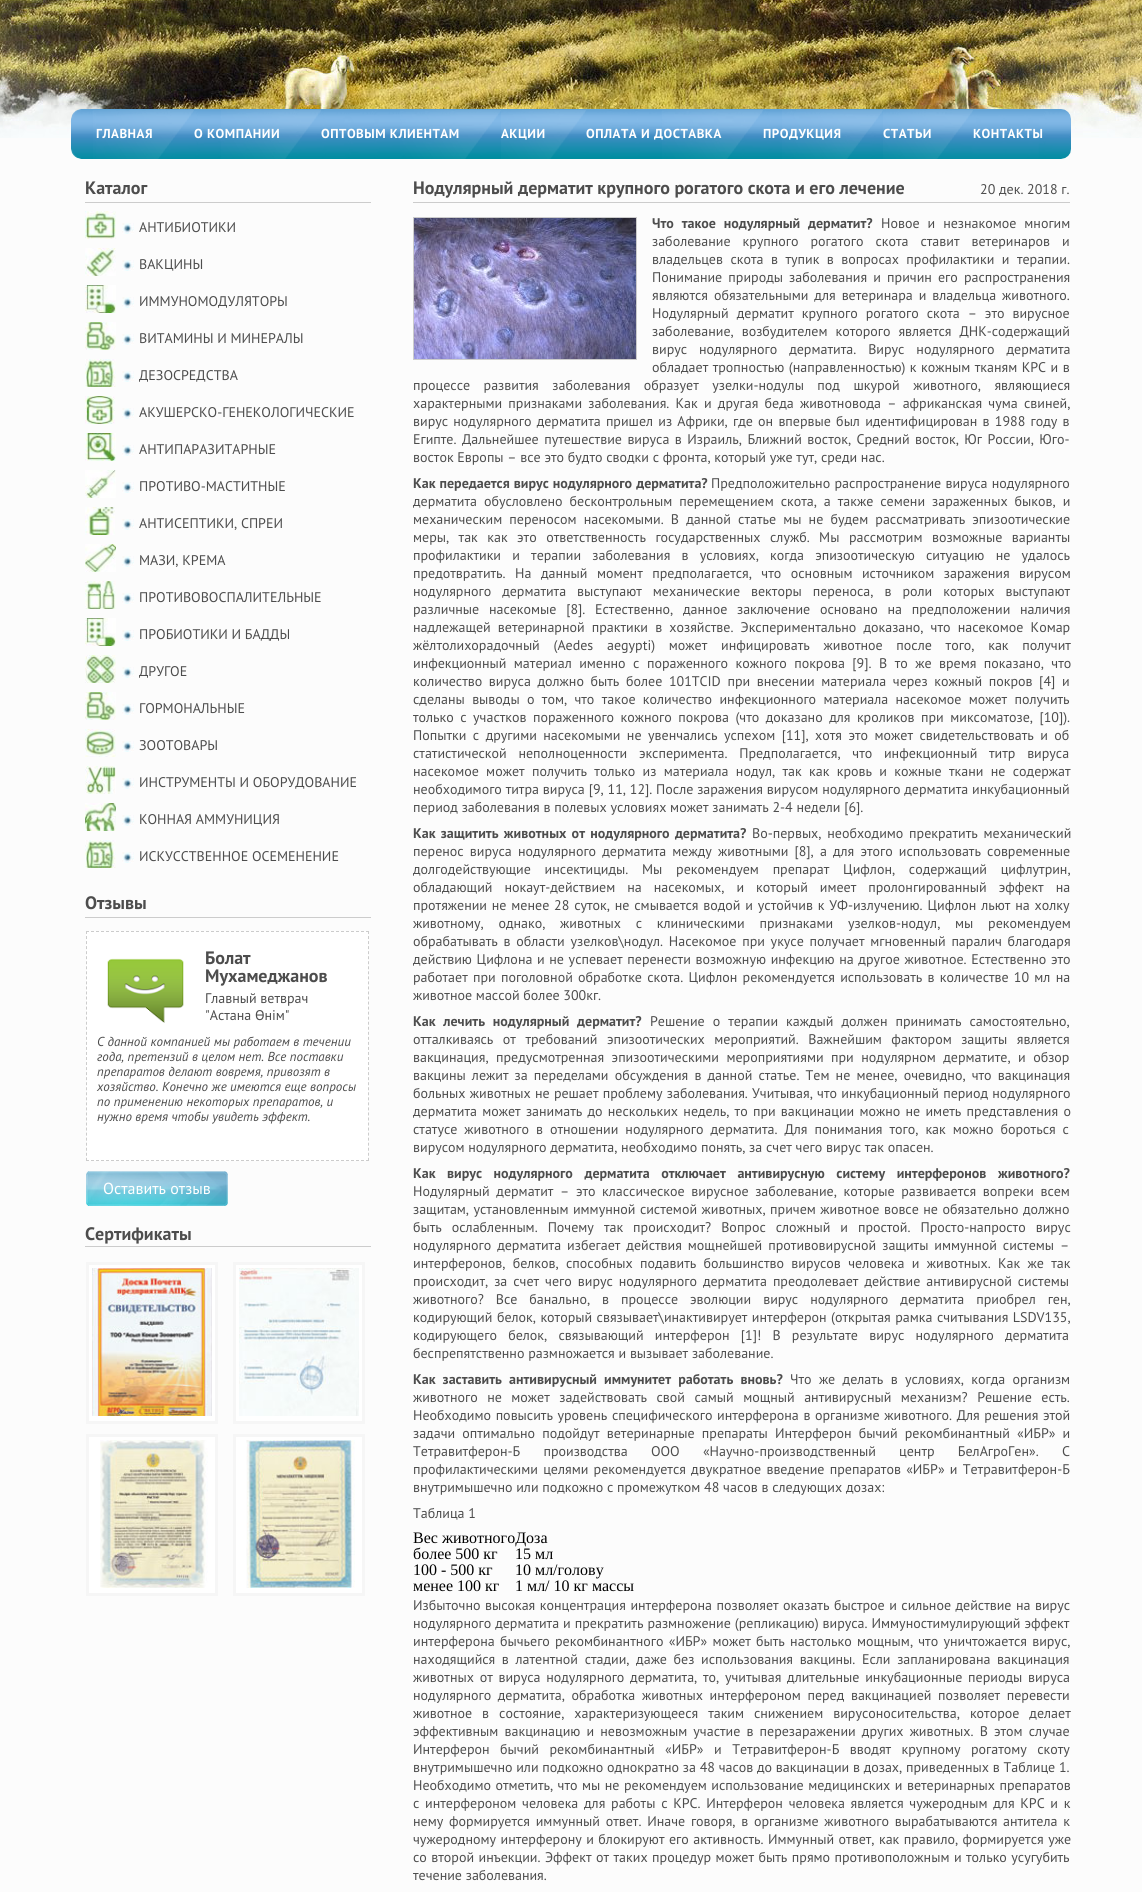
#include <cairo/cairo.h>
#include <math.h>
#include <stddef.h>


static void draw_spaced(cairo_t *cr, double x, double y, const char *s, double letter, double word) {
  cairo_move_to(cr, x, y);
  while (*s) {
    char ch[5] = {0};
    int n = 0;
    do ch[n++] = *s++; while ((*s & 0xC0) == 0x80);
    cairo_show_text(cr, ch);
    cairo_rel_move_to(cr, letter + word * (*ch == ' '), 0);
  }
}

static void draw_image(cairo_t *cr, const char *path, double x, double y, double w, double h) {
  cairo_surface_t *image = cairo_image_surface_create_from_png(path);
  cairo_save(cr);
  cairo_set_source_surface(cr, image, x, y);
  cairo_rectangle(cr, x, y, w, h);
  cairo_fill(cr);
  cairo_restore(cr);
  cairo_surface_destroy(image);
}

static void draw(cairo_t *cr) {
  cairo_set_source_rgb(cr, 252 / 255.0, 252 / 255.0, 252 / 255.0);
  cairo_paint(cr);
  draw_image(cr, "images/1.png", 0, 0, 1142, 138);
  draw_image(cr, "images/2.png", 71, 109, 1000, 50);
  draw_image(cr, "images/3.png", 93, 110, 101, 49);
  draw_image(cr, "images/4.png", 221, 110, 100, 49);
  draw_image(cr, "images/5.png", 400, 110, 101, 49);
  draw_image(cr, "images/6.png", 501, 110, 85, 49);
  draw_image(cr, "images/7.png", 662, 110, 101, 49);
  draw_image(cr, "images/8.png", 782, 110, 101, 49);
  draw_image(cr, "images/9.png", 883, 110, 90, 49);
  cairo_set_source_rgb(cr, 204 / 255.0, 204 / 255.0, 204 / 255.0);
  cairo_rectangle(cr, 85, 202, 286, 1);
  cairo_fill(cr);
  draw_image(cr, "images/10.png", 85, 211, 31, 28);
  draw_image(cr, "images/11.png", 122, 223, 12, 11);
  draw_image(cr, "images/12.png", 85, 248, 31, 28);
  draw_image(cr, "images/11.png", 122, 260, 12, 11);
  draw_image(cr, "images/13.png", 85, 285, 31, 28);
  draw_image(cr, "images/11.png", 122, 297, 12, 11);
  draw_image(cr, "images/14.png", 85, 322, 31, 28);
  draw_image(cr, "images/11.png", 122, 334, 12, 11);
  draw_image(cr, "images/15.png", 85, 359, 31, 28);
  draw_image(cr, "images/11.png", 122, 371, 12, 11);
  draw_image(cr, "images/16.png", 85, 396, 30, 28);
  draw_image(cr, "images/11.png", 122, 408, 12, 11);
  draw_image(cr, "images/17.png", 85, 433, 31, 28);
  draw_image(cr, "images/11.png", 122, 445, 12, 11);
  draw_image(cr, "images/18.png", 85, 470, 31, 28);
  draw_image(cr, "images/11.png", 122, 482, 12, 11);
  draw_image(cr, "images/19.png", 85, 507, 30, 28);
  draw_image(cr, "images/11.png", 122, 519, 12, 11);
  draw_image(cr, "images/20.png", 85, 544, 31, 28);
  draw_image(cr, "images/21.png", 122, 556, 12, 11);
  draw_image(cr, "images/22.png", 85, 581, 31, 28);
  draw_image(cr, "images/11.png", 122, 593, 12, 11);
  draw_image(cr, "images/23.png", 85, 618, 31, 28);
  draw_image(cr, "images/24.png", 122, 630, 12, 11);
  draw_image(cr, "images/25.png", 85, 655, 31, 28);
  draw_image(cr, "images/11.png", 122, 667, 12, 11);
  draw_image(cr, "images/26.png", 85, 692, 31, 28);
  draw_image(cr, "images/11.png", 122, 704, 12, 11);
  draw_image(cr, "images/27.png", 85, 729, 31, 28);
  draw_image(cr, "images/11.png", 122, 741, 12, 11);
  draw_image(cr, "images/28.png", 85, 766, 31, 28);
  draw_image(cr, "images/11.png", 122, 778, 12, 11);
  draw_image(cr, "images/29.png", 85, 803, 31, 28);
  draw_image(cr, "images/11.png", 122, 815, 12, 11);
  draw_image(cr, "images/15.png", 85, 840, 31, 28);
  draw_image(cr, "images/11.png", 122, 852, 12, 11);
  cairo_rectangle(cr, 85, 917, 286, 1);
  cairo_fill(cr);
  cairo_set_source_rgb(cr, 1, 1, 1);
  cairo_rectangle(cr, 86, 931, 283, 230);
  cairo_fill(cr);
  cairo_new_path(cr);
  cairo_move_to(cr, 86, 931.5);
  cairo_line_to(cr, 369, 931.5);
  cairo_set_source_rgb(cr, 204 / 255.0, 204 / 255.0, 204 / 255.0);
  cairo_set_line_width(cr, 1);
  cairo_set_dash(cr, (double[]){3, 2}, 2, 0);
  cairo_stroke(cr);
  cairo_new_path(cr);
  cairo_move_to(cr, 368.5, 931);
  cairo_line_to(cr, 368.5, 1161);
  cairo_set_dash(cr, (double[]){3, 2.04}, 2, 0);
  cairo_stroke(cr);
  cairo_new_path(cr);
  cairo_move_to(cr, 86, 1160.5);
  cairo_line_to(cr, 369, 1160.5);
  cairo_set_dash(cr, (double[]){3, 2}, 2, 0);
  cairo_stroke(cr);
  cairo_new_path(cr);
  cairo_move_to(cr, 86.5, 931);
  cairo_line_to(cr, 86.5, 1161);
  cairo_set_dash(cr, (double[]){3, 2.04}, 2, 0);
  cairo_stroke(cr);
  draw_image(cr, "images/30.png", 107, 958, 77, 65);
  draw_image(cr, "images/31.png", 86, 1171, 142, 35);
  cairo_rectangle(cr, 85, 1246, 286, 1);
  cairo_fill(cr);
  cairo_set_source_rgb(cr, 1, 1, 1);
  cairo_rectangle(cr, 87.5, 1263.5, 129, 159);
  cairo_fill_preserve(cr);
  cairo_set_source_rgb(cr, 246 / 255.0, 246 / 255.0, 246 / 255.0);
  cairo_set_line_width(cr, 3);
  cairo_set_dash(cr, NULL, 0, 0);
  cairo_stroke(cr);
  draw_image(cr, "images/32.png", 92, 1268, 120, 148);
  cairo_set_source_rgb(cr, 1, 1, 1);
  cairo_rectangle(cr, 234.5, 1263.5, 129, 159);
  cairo_fill_preserve(cr);
  cairo_set_source_rgb(cr, 246 / 255.0, 246 / 255.0, 246 / 255.0);
  cairo_stroke(cr);
  draw_image(cr, "images/33.png", 239, 1268, 120, 148);
  cairo_set_source_rgb(cr, 1, 1, 1);
  cairo_rectangle(cr, 87.5, 1435.5, 129, 159);
  cairo_fill_preserve(cr);
  cairo_set_source_rgb(cr, 246 / 255.0, 246 / 255.0, 246 / 255.0);
  cairo_stroke(cr);
  draw_image(cr, "images/34.png", 100, 1440, 108, 148);
  cairo_set_source_rgb(cr, 1, 1, 1);
  cairo_rectangle(cr, 234.5, 1435.5, 129, 159);
  cairo_fill_preserve(cr);
  cairo_set_source_rgb(cr, 246 / 255.0, 246 / 255.0, 246 / 255.0);
  cairo_stroke(cr);
  draw_image(cr, "images/35.png", 246, 1440, 109, 148);
  cairo_set_source_rgb(cr, 204 / 255.0, 204 / 255.0, 204 / 255.0);
  cairo_rectangle(cr, 413, 202, 657, 1);
  cairo_fill(cr);
  cairo_rectangle(cr, 413.5, 217.5, 223, 142);
  cairo_set_line_width(cr, 1);
  cairo_stroke(cr);
  draw_image(cr, "images/36.png", 414, 218, 222, 141);
  cairo_select_font_face(cr, "PT Sans", CAIRO_FONT_SLANT_NORMAL, CAIRO_FONT_WEIGHT_BOLD);
  cairo_set_font_size(cr, 13);
  cairo_set_source_rgb(cr, 1, 1, 1);
  draw_spaced(cr, 96, 138, "ГЛАВНАЯ", 0.5, 0);
  draw_spaced(cr, 194, 138, "О КОМПАНИИ", 0.5, 0);
  draw_spaced(cr, 321, 138, "ОПТОВЫМ КЛИЕНТАМ", 0.5, 0);
  draw_spaced(cr, 501, 138, "АКЦИИ", 0.5, 0);
  draw_spaced(cr, 586, 138, "ОПЛАТА И ДОСТАВКА", 0.5, 0);
  draw_spaced(cr, 763, 138, "ПРОДУКЦИЯ", 0.5, 0);
  draw_spaced(cr, 883, 138, "СТАТЬИ", 0.5, 0);
  draw_spaced(cr, 973, 138, "КОНТАКТЫ", 0.5, 0);
  cairo_set_font_size(cr, 18);
  cairo_set_source_rgb(cr, 77 / 255.0, 77 / 255.0, 77 / 255.0);
  cairo_move_to(cr, 85, 194);
  cairo_show_text(cr, "Каталог");
  cairo_select_font_face(cr, "PT Sans", CAIRO_FONT_SLANT_NORMAL, CAIRO_FONT_WEIGHT_NORMAL);
  cairo_set_font_size(cr, 14);
  cairo_move_to(cr, 139, 232);
  cairo_show_text(cr, "АНТИБИОТИКИ");
  cairo_move_to(cr, 139, 269);
  cairo_show_text(cr, "ВАКЦИНЫ");
  cairo_move_to(cr, 139, 306);
  cairo_show_text(cr, "ИММУНОМОДУЛЯТОРЫ");
  cairo_move_to(cr, 139, 343);
  cairo_show_text(cr, "ВИТАМИНЫ И МИНЕРАЛЫ");
  cairo_move_to(cr, 139, 380);
  cairo_show_text(cr, "ДЕЗОСРЕДСТВА");
  cairo_move_to(cr, 139, 417);
  cairo_show_text(cr, "АКУШЕРСКО-ГЕНЕКОЛОГИЧЕСКИЕ");
  cairo_move_to(cr, 139, 454);
  cairo_show_text(cr, "АНТИПАРАЗИТАРНЫЕ");
  cairo_move_to(cr, 139, 491);
  cairo_show_text(cr, "ПРОТИВО-МАСТИТНЫЕ");
  cairo_move_to(cr, 139, 528);
  cairo_show_text(cr, "АНТИСЕПТИКИ, СПРЕИ");
  cairo_move_to(cr, 139, 565);
  cairo_show_text(cr, "МАЗИ, КРЕМА");
  cairo_move_to(cr, 139, 602);
  cairo_show_text(cr, "ПРОТИВОВОСПАЛИТЕЛЬНЫЕ");
  cairo_move_to(cr, 139, 639);
  cairo_show_text(cr, "ПРОБИОТИКИ И БАДДЫ");
  cairo_move_to(cr, 139, 676);
  cairo_show_text(cr, "ДРУГОЕ");
  cairo_move_to(cr, 139, 713);
  cairo_show_text(cr, "ГОРМОНАЛЬНЫЕ");
  cairo_move_to(cr, 139, 750);
  cairo_show_text(cr, "ЗООТОВАРЫ");
  cairo_move_to(cr, 139, 787);
  cairo_show_text(cr, "ИНСТРУМЕНТЫ И ОБОРУДОВАНИЕ");
  cairo_move_to(cr, 139, 824);
  cairo_show_text(cr, "КОННАЯ АММУНИЦИЯ");
  cairo_move_to(cr, 139, 861);
  cairo_show_text(cr, "ИСКУССТВЕННОЕ ОСЕМЕНЕНИЕ");
  cairo_select_font_face(cr, "PT Sans", CAIRO_FONT_SLANT_NORMAL, CAIRO_FONT_WEIGHT_BOLD);
  cairo_set_font_size(cr, 18);
  cairo_move_to(cr, 85, 909);
  cairo_show_text(cr, "Отзывы");
  cairo_move_to(cr, 205, 964);
  cairo_show_text(cr, "Болат");
  cairo_move_to(cr, 205, 982);
  cairo_show_text(cr, "Мухамеджанов");
  cairo_select_font_face(cr, "PT Sans", CAIRO_FONT_SLANT_NORMAL, CAIRO_FONT_WEIGHT_NORMAL);
  cairo_set_font_size(cr, 14);
  cairo_move_to(cr, 205, 1003);
  cairo_show_text(cr, "Главный ветврач");
  cairo_move_to(cr, 205, 1020);
  cairo_show_text(cr, "\"Астана Өнім\"");
  cairo_select_font_face(cr, "PT Sans", CAIRO_FONT_SLANT_ITALIC, CAIRO_FONT_WEIGHT_NORMAL);
  cairo_set_font_size(cr, 13);
  cairo_move_to(cr, 97, 1046);
  cairo_show_text(cr, "С данной компанией мы работаем в течении");
  cairo_move_to(cr, 97, 1061);
  cairo_show_text(cr, "года, претензий в целом нет. Все поставки");
  cairo_move_to(cr, 97, 1076);
  cairo_show_text(cr, "препаратов делают вовремя, привозят в");
  cairo_move_to(cr, 97, 1091);
  cairo_show_text(cr, "хозяйство. Конечно же имеются еще вопросы");
  cairo_move_to(cr, 97, 1106);
  cairo_show_text(cr, "по применению некоторых препаратов, и");
  cairo_move_to(cr, 97, 1121);
  cairo_show_text(cr, "нужно время чтобы увидеть эффект.");
  cairo_select_font_face(cr, "PT Sans", CAIRO_FONT_SLANT_NORMAL, CAIRO_FONT_WEIGHT_NORMAL);
  cairo_set_font_size(cr, 16);
  cairo_set_source_rgb(cr, 1, 1, 1);
  cairo_move_to(cr, 103, 1194);
  cairo_show_text(cr, "Оставить отзыв");
  cairo_select_font_face(cr, "PT Sans", CAIRO_FONT_SLANT_NORMAL, CAIRO_FONT_WEIGHT_BOLD);
  cairo_set_font_size(cr, 18);
  cairo_set_source_rgb(cr, 77 / 255.0, 77 / 255.0, 77 / 255.0);
  cairo_move_to(cr, 85, 1240);
  cairo_show_text(cr, "Сертификаты");
  cairo_move_to(cr, 413, 194);
  cairo_show_text(cr, "Нодулярный дерматит крупного рогатого скота и его лечение");
  cairo_select_font_face(cr, "PT Sans", CAIRO_FONT_SLANT_NORMAL, CAIRO_FONT_WEIGHT_NORMAL);
  cairo_set_font_size(cr, 14);
  cairo_move_to(cr, 980, 194);
  cairo_show_text(cr, "20 дек. 2018 г.");
  cairo_select_font_face(cr, "PT Sans", CAIRO_FONT_SLANT_NORMAL, CAIRO_FONT_WEIGHT_BOLD);
  draw_spaced(cr, 652, 228, "Что такое нодулярный дерматит?", 0, 4.25);
  cairo_select_font_face(cr, "PT Sans", CAIRO_FONT_SLANT_NORMAL, CAIRO_FONT_WEIGHT_NORMAL);
  draw_spaced(cr, 881, 228, "Новое и незнакомое многим", 0, 4.25);
  draw_spaced(cr, 652, 246, "заболевание крупного рогатого скота ставит ветеринаров и", 0, 8.25);
  draw_spaced(cr, 652, 264, "владельцев скота в тупик в вопросах профилактики и терапии.", 0, 3.75);
  draw_spaced(cr, 652, 282, "Понимание природы заболевания и причин его распространения", 0, 2.4);
  draw_spaced(cr, 652, 300, "являются обязательными для ветеринара и владельца животного.", 0, 2.25);
  draw_spaced(cr, 652, 318, "Нодулярный дерматит крупного рогатого скота – это вирусное", 0, 4.25);
  draw_spaced(cr, 652, 336, "заболевание, возбудителем которого является ДНК-содержащий", 0, 4.25);
  draw_spaced(cr, 652, 354, "вирус нодулярного дерматита. Вирус нодулярного дерматита", 0, 8.25);
  draw_spaced(cr, 652, 372, "обладает тропностью (направленностью) к кожным тканям КРС и в", 0, 0.75);
  draw_spaced(cr, 413, 390, "процессе развития заболевания образует узелки-нодулы под шкурой животного, являющиеся", 0, 9.75);
  draw_spaced(cr, 413, 408, "характерными признаками заболевания. Как и другая беда животновода – африканская чума свиней,", 0, 2.5);
  draw_spaced(cr, 413, 426, "вирус нодулярного дерматита пришел из Африки, где он впервые был идентифицирован в 1988 году в", 0, 1.5);
  draw_spaced(cr, 413, 444, "Египте. Дальнейшее путешествие вируса в Израиль, Ближний восток, Средний восток, Юг России, Юго-", 0, 1.75);
  cairo_move_to(cr, 413, 462);
  cairo_show_text(cr, "восток Европы – все это будто сводки с фронта, который уже тут, среди нас.");
  cairo_select_font_face(cr, "PT Sans", CAIRO_FONT_SLANT_NORMAL, CAIRO_FONT_WEIGHT_BOLD);
  draw_spaced(cr, 413, 488, "Как передается вирус нодулярного дерматита?", 0, 0.5);
  cairo_select_font_face(cr, "PT Sans", CAIRO_FONT_SLANT_NORMAL, CAIRO_FONT_WEIGHT_NORMAL);
  draw_spaced(cr, 711, 488, "Предположительно распространение вируса нодулярного", 0, 0.5);
  draw_spaced(cr, 413, 506, "дерматита обусловлено бесконтрольным перемещением скота, а также семени зараженных быков, и", 0, 3.25);
  draw_spaced(cr, 413, 524, "механическим переносом насекомыми. В данной статье мы не будем рассматривать эпизоотические", 0, 3.4);
  draw_spaced(cr, 413, 542, "меры, так как это ответственность государственных служб. Мы рассмотрим возможные варианты", 0, 5.75);
  draw_spaced(cr, 413, 560, "профилактики и терапии заболевания в условиях, когда эпизоотическую ситуацию не удалось", 0, 7.5);
  draw_spaced(cr, 413, 578, "предотвратить. На данный момент предполагается, что основным источником заражения вирусом", 0, 5.75);
  draw_spaced(cr, 413, 596, "нодулярного дерматита выступают механические векторы переноса, в роли которых выступают", 0, 7.25);
  draw_spaced(cr, 413, 614, "различные насекомые [8]. Естественно, данное заключение основано на предположении наличия", 0, 6);
  draw_spaced(cr, 413, 632, "надлежащей ветеринарной практики в хозяйстве. Экспериментально доказано, что насекомое Комар", 0, 3.4);
  draw_spaced(cr, 413, 650, "жёлтолихорадочный (Aedes aegypti) может инфицировать животное после того, как получит", 0, 10);
  draw_spaced(cr, 413, 668, "инфекционный материал именно с пораженного кожного покрова [9]. В то же время показано, что", 0, 3.75);
  draw_spaced(cr, 413, 686, "количество вируса должно быть более 101TCID при внесении материала через кожный покров [4] и", 0, 2.9);
  draw_spaced(cr, 413, 704, "сделаны выводы о том, что такое количество инфекционного материала насекомое может получить", 0, 3.6);
  draw_spaced(cr, 413, 722, "только с участков пораженного кожного покрова (что доказано для кроликов при миксоматозе, [10]).", 0, 2.75);
  draw_spaced(cr, 413, 740, "Попытки с другими насекомыми не увенчались успехом [11], хотя это может свидетельствовать и об", 0, 2.75);
  draw_spaced(cr, 413, 758, "статистической неполноценности эксперимента. Предполагается, что инфекционный титр вируса", 0, 8);
  draw_spaced(cr, 413, 776, "насекомое может получить только из материала нодул, так как кровь и кожные ткани не содержат", 0, 3.6);
  draw_spaced(cr, 413, 794, "необходимого титра вируса [9, 11, 12]. После заражения вирусом нодулярного дерматита инкубационный", 0, 0.1);
  cairo_move_to(cr, 413, 812);
  cairo_show_text(cr, "период заболевания в полевых условиях может занимать 2-4 недели [6].");
  cairo_select_font_face(cr, "PT Sans", CAIRO_FONT_SLANT_NORMAL, CAIRO_FONT_WEIGHT_BOLD);
  draw_spaced(cr, 413, 838, "Как защитить животных от нодулярного дерматита?", 0, 1.75);
  cairo_select_font_face(cr, "PT Sans", CAIRO_FONT_SLANT_NORMAL, CAIRO_FONT_WEIGHT_NORMAL);
  draw_spaced(cr, 752, 838, "Во-первых, необходимо прекратить механический", 0, 2);
  draw_spaced(cr, 413, 856, "перенос вируса нодулярного дерматита между животными [8], а для этого использовать современные", 0, 2.4);
  draw_spaced(cr, 413, 874, "долгодействующие инсектициды. Мы рекомендуем препарат Цифлон, содержащий цифлутрин,", 0, 10);
  draw_spaced(cr, 413, 892, "обладающий нокаут-действием на насекомых, и который имеет пролонгированный эффект на", 0, 8.25);
  draw_spaced(cr, 413, 910, "протяжении не менее 28 суток, не смывается водой и устойчив к УФ-излучению. Цифлон льют на холку", 0, 1.1);
  draw_spaced(cr, 413, 928, "животному, однако, животных с клиническими признаками узелков-нодул, мы рекомендуем", 0, 11);
  draw_spaced(cr, 413, 946, "обрабатывать в области узелков\\нодул. Насекомое при укусе получает мгновенный паралич благодаря", 0, 2);
  draw_spaced(cr, 413, 964, "действию Цифлона и не успевает перенести возможную инфекцию на другое животное. Естественно это", 0, 0.9);
  draw_spaced(cr, 413, 982, "работает при поголовной обработке скота. Цифлон рекомендуется использовать в количестве 10 мл на", 0, 1.5);
  cairo_move_to(cr, 413, 1000);
  cairo_show_text(cr, "животное массой более 300кг.");
  cairo_select_font_face(cr, "PT Sans", CAIRO_FONT_SLANT_NORMAL, CAIRO_FONT_WEIGHT_BOLD);
  draw_spaced(cr, 413, 1026, "Как лечить нодулярный дерматит?", 0, 4.25);
  cairo_select_font_face(cr, "PT Sans", CAIRO_FONT_SLANT_NORMAL, CAIRO_FONT_WEIGHT_NORMAL);
  draw_spaced(cr, 650, 1026, "Решение о терапии каждый должен принимать самостоятельно,", 0, 4.25);
  draw_spaced(cr, 413, 1044, "отталкиваясь от требований эпизоотических мероприятий. Важнейшим фактором защиты является", 0, 5.75);
  draw_spaced(cr, 413, 1062, "вакцинация, предусмотренная эпизоотическими мероприятиями при нодулярном дерматите, и обзор", 0, 3.75);
  draw_spaced(cr, 413, 1080, "вакцины лежит за переделами обсуждения в данной статье. Тем не менее, очевидно, что вакцинация", 0, 2.4);
  draw_spaced(cr, 413, 1098, "больных животных не решает проблему заболевания. Учитывая, что инкубационный период нодулярного", 0, 0.5);
  draw_spaced(cr, 413, 1116, "дерматита может занимать до нескольких недель, то при вакцинации можно не иметь представления о", 0, 1.5);
  draw_spaced(cr, 413, 1134, "статусе животного в отношении нодулярного дерматита. Для понимания того, как можно бороться с", 0, 3.25);
  cairo_move_to(cr, 413, 1152);
  cairo_show_text(cr, "вирусом нодулярного дерматита, необходимо понять, за счет чего вирус так опасен.");
  cairo_select_font_face(cr, "PT Sans", CAIRO_FONT_SLANT_NORMAL, CAIRO_FONT_WEIGHT_BOLD);
  draw_spaced(cr, 413, 1178, "Как вирус нодулярного дерматита отключает антивирусную систему интерферонов животного?", 0, 8);
  cairo_select_font_face(cr, "PT Sans", CAIRO_FONT_SLANT_NORMAL, CAIRO_FONT_WEIGHT_NORMAL);
  draw_spaced(cr, 413, 1196, "Нодулярный дерматит – это классическое вирусное заболевание, которые развивается вопреки всем", 0, 2.9);
  draw_spaced(cr, 413, 1214, "защитам, установленным иммунной системой животных, причем животное вовсе не обязательно должно", 0, 0.75);
  draw_spaced(cr, 413, 1232, "быть ослабленным. Почему так происходит? Вопрос сложный и простой. Просто-напросто вирус", 0, 6.25);
  draw_spaced(cr, 413, 1250, "нодулярного дерматита избегает действия мощнейшей противовирусной защиты иммунной системы –", 0, 2.25);
  draw_spaced(cr, 413, 1268, "интерферонов, белков, способных подавить большинство вирусов человека и животных. Как же так", 0, 3.6);
  draw_spaced(cr, 413, 1286, "происходит, за счет чего вирус нодулярного дерматита преодолевает действие антивирусной системы", 0, 2.25);
  draw_spaced(cr, 413, 1304, "животного? Все банально, в процессе эволюции вирус нодулярного дерматита приобрел ген,", 0, 8.25);
  draw_spaced(cr, 413, 1322, "кодирующий белок, который связывает\\инактивирует интерферон (открытая рамка считывания LSDV135,", 0, 0.75);
  draw_spaced(cr, 413, 1340, "кодирующего белок, связывающий интерферон [1]! В результате вирус нодулярного дерматита", 0, 7.5);
  cairo_move_to(cr, 413, 1358);
  cairo_show_text(cr, "беспрепятственно размножается и вызывает заболевание.");
  cairo_select_font_face(cr, "PT Sans", CAIRO_FONT_SLANT_NORMAL, CAIRO_FONT_WEIGHT_BOLD);
  draw_spaced(cr, 413, 1384, "Как заставить антивирусный иммунитет работать вновь?", 0, 3.6);
  cairo_select_font_face(cr, "PT Sans", CAIRO_FONT_SLANT_NORMAL, CAIRO_FONT_WEIGHT_NORMAL);
  draw_spaced(cr, 790, 1384, "Что же делать в условиях, когда организм", 0, 3.6);
  draw_spaced(cr, 413, 1402, "животного не может задействовать свой самый мощный антивирусный механизм? Решение есть.", 0, 5.75);
  draw_spaced(cr, 413, 1420, "Необходимо повысить уровень специфического интерферона в организме животного. Для решения этой", 0, 0.9);
  draw_spaced(cr, 413, 1438, "задачи оптимально подойдут ветеринарные препараты Интерферон бычий рекомбинантный «ИБР» и", 0, 3.4);
  draw_spaced(cr, 413, 1456, "Тетравитферон-Б производства ООО «Научно-производственный центр БелАгроГен». С", 0, 19.5);
  draw_spaced(cr, 413, 1474, "профилактическими целями рекомендуется двукратное введение препаратов «ИБР» и Тетравитферон-Б", 0, 1.5);
  cairo_move_to(cr, 413, 1492);
  cairo_show_text(cr, "внутримышечно или подкожно с промежутком 48 часов в следующих дозах:");
  cairo_move_to(cr, 413, 1518);
  cairo_show_text(cr, "Таблица 1");
  cairo_select_font_face(cr, "Liberation Serif", CAIRO_FONT_SLANT_NORMAL, CAIRO_FONT_WEIGHT_NORMAL);
  cairo_set_font_size(cr, 16);
  cairo_set_source_rgb(cr, 0, 0, 0);
  cairo_move_to(cr, 413, 1543);
  cairo_show_text(cr, "Вес животногоДоза");
  cairo_move_to(cr, 413, 1559);
  cairo_show_text(cr, "более 500 кг");
  cairo_move_to(cr, 515, 1559);
  cairo_show_text(cr, "15 мл");
  cairo_move_to(cr, 413, 1575);
  cairo_show_text(cr, "100 - 500 кг");
  cairo_move_to(cr, 515, 1575);
  cairo_show_text(cr, "10 мл/голову");
  cairo_move_to(cr, 413, 1591);
  cairo_show_text(cr, "менее 100 кг");
  cairo_move_to(cr, 515, 1591);
  cairo_show_text(cr, "1 мл/ 10 кг массы");
  cairo_select_font_face(cr, "PT Sans", CAIRO_FONT_SLANT_NORMAL, CAIRO_FONT_WEIGHT_NORMAL);
  cairo_set_font_size(cr, 14);
  cairo_set_source_rgb(cr, 77 / 255.0, 77 / 255.0, 77 / 255.0);
  draw_spaced(cr, 413, 1610, "Избыточно высокая концентрация интерферона позволяет оказать быстрое и сильное действие на вирус", 0, 0.75);
  draw_spaced(cr, 413, 1628, "нодулярного дерматита и прекратить размножение (репликацию) вируса. Иммуностимулирующий эффект", 0, 0.25);
  draw_spaced(cr, 413, 1646, "интерферона бычьего рекомбинантного «ИБР» может быть настолько мощным, что уничтожается вирус,", 0, 1.5);
  draw_spaced(cr, 413, 1664, "находящийся в латентной стадии, даже без использования вакцины. Если запланирована вакцинация", 0, 2.9);
  draw_spaced(cr, 413, 1682, "животных от вируса нодулярного дерматита, то, учитывая длительные инкубационные периоды вируса", 0, 2);
  draw_spaced(cr, 413, 1700, "нодулярного дерматита, обработка животных интерфероном перед вакцинацией позволяет перевести", 0, 2.9);
  draw_spaced(cr, 413, 1718, "животное в состояние, характеризующееся таким снижением вирусоносительства, которое делает", 0, 6.25);
  draw_spaced(cr, 413, 1736, "эффективным вакцинацию и невозможным участие в перезаражении других животных. В этом случае", 0, 2.4);
  draw_spaced(cr, 413, 1754, "Интерферон бычий рекомбинантный «ИБР» и Тетравитферон-Б вводят крупному рогатому скоту", 0, 6.75);
  cairo_move_to(cr, 413, 1772);
  cairo_show_text(cr, "внутримышечно или подкожно однократно за 48 часов до вакцинации в дозах, приведенных в Таблице 1.");
  draw_spaced(cr, 413, 1790, "Необходимо отметить, что мы не рекомендуем использование медицинских и ветеринарных препаратов", 0, 0.75);
  draw_spaced(cr, 413, 1808, "с интерфероном человека для работы с КРС. Интерферон человека является чужеродным для КРС и к", 0, 2);
  draw_spaced(cr, 413, 1826, "нему формируется иммунный ответ. Иначе говоря, в организме животного вырабатываются антитела к", 0, 2);
  draw_spaced(cr, 413, 1844, "чужеродному интерферону и блокируют его активность. Иммунный ответ, как правило, формируется уже", 0, 0.75);
  draw_spaced(cr, 413, 1862, "со второй инъекции. Эффект от таких процедур может быть прямо противоположным и только усугубить", 0, 0.75);
  cairo_move_to(cr, 413, 1880);
  cairo_show_text(cr, "течение заболевания.");
}

int main(void) {
  cairo_surface_t *surface = cairo_image_surface_create(CAIRO_FORMAT_RGB24, 1142, 1892);
  cairo_t *cr = cairo_create(surface);
  cairo_font_options_t *options = cairo_font_options_create();
  cairo_font_options_set_hint_metrics(options, CAIRO_HINT_METRICS_OFF);
  cairo_font_options_set_hint_style(options, CAIRO_HINT_STYLE_NONE);
  cairo_set_font_options(cr, options);
  cairo_set_miter_limit(cr, 4);
  draw(cr);
  cairo_surface_write_to_png(surface, "out.png");
  cairo_font_options_destroy(options);
  cairo_destroy(cr);
  cairo_surface_destroy(surface);
  return 0;
}
